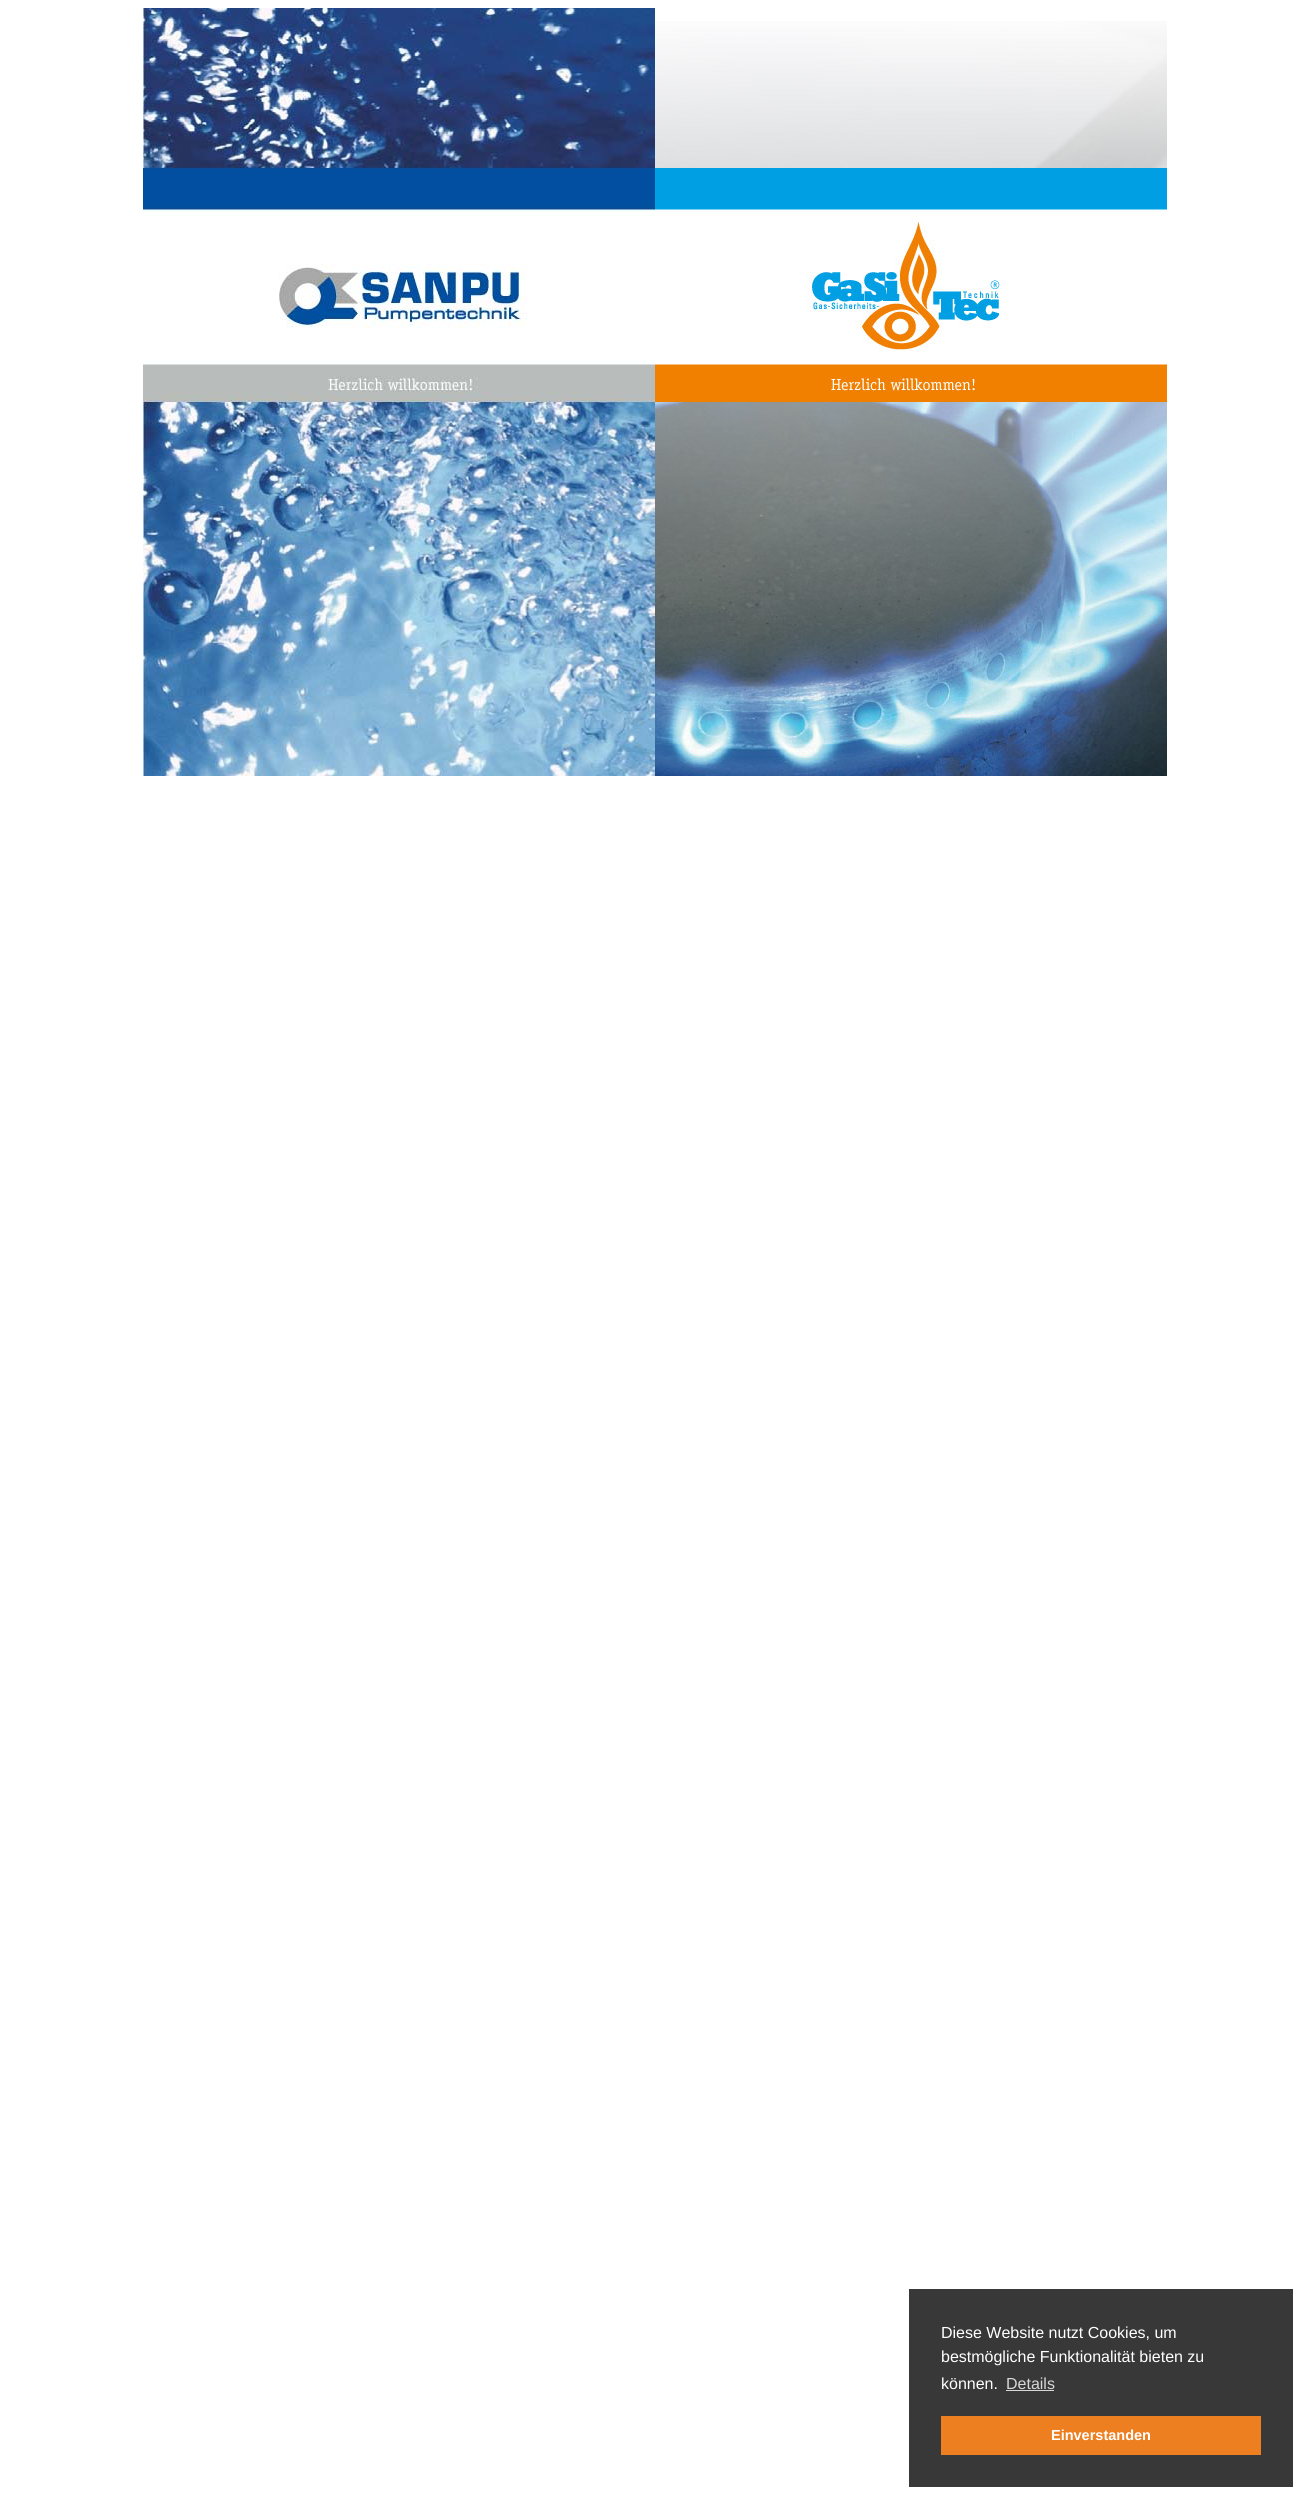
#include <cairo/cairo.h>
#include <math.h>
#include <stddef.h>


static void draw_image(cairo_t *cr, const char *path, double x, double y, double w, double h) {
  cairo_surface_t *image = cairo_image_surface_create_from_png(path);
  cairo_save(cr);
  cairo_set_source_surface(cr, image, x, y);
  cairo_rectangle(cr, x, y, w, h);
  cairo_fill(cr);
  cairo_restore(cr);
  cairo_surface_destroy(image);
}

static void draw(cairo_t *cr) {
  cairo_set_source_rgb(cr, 1, 1, 1);
  cairo_paint(cr);
  draw_image(cr, "images/1.png", 143, 8, 512, 768);
  draw_image(cr, "images/2.png", 655, 21, 512, 755);
  cairo_set_source_rgb(cr, 56 / 255.0, 56 / 255.0, 56 / 255.0);
  cairo_rectangle(cr, 909, 2289, 384, 198);
  cairo_fill(cr);
  cairo_set_source_rgb(cr, 215 / 255.0, 215 / 255.0, 215 / 255.0);
  cairo_rectangle(cr, 1006, 2390, 48, 1);
  cairo_fill(cr);
  cairo_set_source_rgb(cr, 238 / 255.0, 127 / 255.0, 32 / 255.0);
  cairo_rectangle(cr, 941, 2416, 320, 39);
  cairo_fill(cr);
  cairo_select_font_face(cr, "Liberation Sans", CAIRO_FONT_SLANT_NORMAL, CAIRO_FONT_WEIGHT_NORMAL);
  cairo_set_font_size(cr, 16);
  cairo_set_source_rgb(cr, 1, 1, 1);
  cairo_move_to(cr, 941, 2338);
  cairo_show_text(cr, "Diese Website nutzt Cookies, um");
  cairo_move_to(cr, 941, 2362);
  cairo_show_text(cr, "bestmögliche Funktionalität bieten zu");
  cairo_move_to(cr, 941, 2389);
  cairo_show_text(cr, "können.");
  cairo_set_source_rgb(cr, 215 / 255.0, 215 / 255.0, 215 / 255.0);
  cairo_move_to(cr, 1006, 2389);
  cairo_show_text(cr, "Details");
  cairo_select_font_face(cr, "Liberation Sans", CAIRO_FONT_SLANT_NORMAL, CAIRO_FONT_WEIGHT_BOLD);
  cairo_set_font_size(cr, 14.5);
  cairo_set_source_rgb(cr, 1, 1, 1);
  cairo_move_to(cr, 1051, 2440);
  cairo_show_text(cr, "Einverstanden");
}

int main(void) {
  cairo_surface_t *surface = cairo_image_surface_create(CAIRO_FORMAT_RGB24, 1309, 2503);
  cairo_t *cr = cairo_create(surface);
  cairo_font_options_t *options = cairo_font_options_create();
  cairo_font_options_set_hint_metrics(options, CAIRO_HINT_METRICS_OFF);
  cairo_font_options_set_hint_style(options, CAIRO_HINT_STYLE_NONE);
  cairo_set_font_options(cr, options);
  cairo_set_miter_limit(cr, 4);
  draw(cr);
  cairo_surface_write_to_png(surface, "out.png");
  cairo_font_options_destroy(options);
  cairo_destroy(cr);
  cairo_surface_destroy(surface);
  return 0;
}
